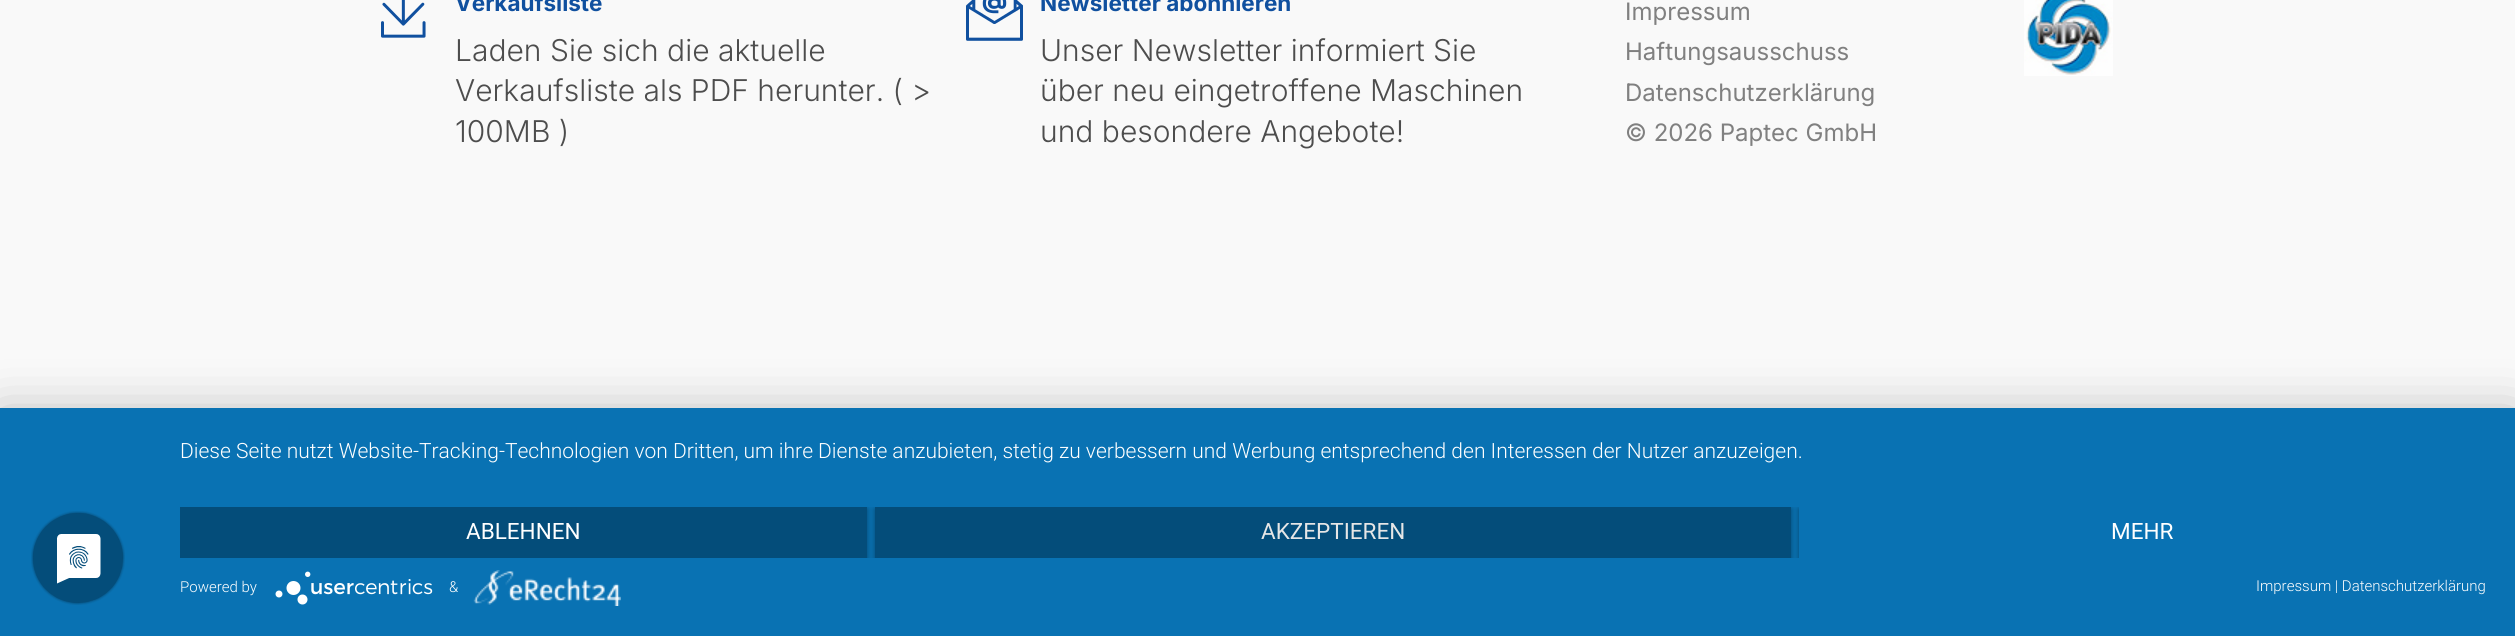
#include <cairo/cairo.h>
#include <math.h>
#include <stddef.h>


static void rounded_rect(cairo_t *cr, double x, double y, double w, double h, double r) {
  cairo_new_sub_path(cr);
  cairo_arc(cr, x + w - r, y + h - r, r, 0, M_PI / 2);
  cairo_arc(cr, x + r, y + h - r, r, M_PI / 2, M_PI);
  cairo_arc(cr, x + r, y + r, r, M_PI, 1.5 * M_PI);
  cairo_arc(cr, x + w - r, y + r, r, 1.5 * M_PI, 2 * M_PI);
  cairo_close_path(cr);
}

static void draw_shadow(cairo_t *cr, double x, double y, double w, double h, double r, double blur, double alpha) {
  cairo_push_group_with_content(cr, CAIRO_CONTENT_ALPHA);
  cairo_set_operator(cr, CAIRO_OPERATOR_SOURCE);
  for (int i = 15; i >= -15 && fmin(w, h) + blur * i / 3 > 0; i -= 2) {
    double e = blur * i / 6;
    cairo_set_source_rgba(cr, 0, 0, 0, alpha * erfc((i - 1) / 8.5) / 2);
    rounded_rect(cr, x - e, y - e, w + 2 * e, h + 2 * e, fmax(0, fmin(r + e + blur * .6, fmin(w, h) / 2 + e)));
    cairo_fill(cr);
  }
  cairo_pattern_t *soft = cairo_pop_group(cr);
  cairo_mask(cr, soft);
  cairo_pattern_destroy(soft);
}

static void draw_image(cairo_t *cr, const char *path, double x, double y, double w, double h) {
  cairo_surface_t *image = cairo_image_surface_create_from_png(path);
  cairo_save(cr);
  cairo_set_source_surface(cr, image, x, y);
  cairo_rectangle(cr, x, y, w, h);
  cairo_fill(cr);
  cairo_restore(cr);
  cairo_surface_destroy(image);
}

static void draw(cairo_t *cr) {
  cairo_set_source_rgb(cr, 249 / 255.0, 249 / 255.0, 249 / 255.0);
  cairo_paint(cr);
  draw_image(cr, "images/1.png", 381, 0, 45, 38);
  draw_image(cr, "images/2.png", 966, 0, 57, 41);
  draw_image(cr, "images/3.png", 2024, 0, 89, 76);
  cairo_set_source_rgb(cr, 0, 0, 0);
  draw_shadow(cr, 0, 417, 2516, 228, 0, 27, 0.3);
  cairo_set_source_rgb(cr, 9 / 255.0, 114 / 255.0, 179 / 255.0);
  cairo_rectangle(cr, 0, 408, 2515, 228);
  cairo_fill(cr);
  draw_image(cr, "images/4.png", 31, 511, 94, 94);
  cairo_save(cr);
  cairo_rectangle(cr, 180, 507, 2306, 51);
  cairo_clip(cr);
  cairo_set_source_rgb(cr, 0, 0, 0);
  draw_shadow(cr, 180, 509, 687, 51, 0, 3, 0.4);
  cairo_restore(cr);
  cairo_set_source_rgb(cr, 4 / 255.0, 77 / 255.0, 122 / 255.0);
  cairo_rectangle(cr, 180, 507, 687, 51);
  cairo_fill(cr);
  cairo_save(cr);
  cairo_rectangle(cr, 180, 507, 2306, 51);
  cairo_clip(cr);
  cairo_set_source_rgb(cr, 0, 0, 0);
  draw_shadow(cr, 875, 509, 916, 51, 0, 3, 0.4);
  cairo_restore(cr);
  cairo_rectangle(cr, 875, 507, 916, 51);
  cairo_fill(cr);
  cairo_save(cr);
  cairo_rectangle(cr, 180, 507, 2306, 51);
  cairo_clip(cr);
  cairo_set_source_rgb(cr, 0, 0, 0);
  draw_shadow(cr, 1799, 509, 687, 51, 0, 3, 0.4);
  cairo_restore(cr);
  cairo_set_source_rgb(cr, 9 / 255.0, 114 / 255.0, 179 / 255.0);
  cairo_rectangle(cr, 1799, 507, 687, 51);
  cairo_fill(cr);
  draw_image(cr, "images/5.png", 275, 571, 158, 34);
  draw_image(cr, "images/6.png", 473, 570, 148, 36);
  cairo_select_font_face(cr, "Inter", CAIRO_FONT_SLANT_NORMAL, CAIRO_FONT_WEIGHT_BOLD);
  cairo_set_font_size(cr, 22.5);
  cairo_set_source_rgb(cr, 16 / 255.0, 80 / 255.0, 159 / 255.0);
  cairo_move_to(cr, 455, 11);
  cairo_show_text(cr, "Verkaufsliste");
  cairo_select_font_face(cr, "Inter Light", CAIRO_FONT_SLANT_NORMAL, CAIRO_FONT_WEIGHT_NORMAL);
  cairo_set_font_size(cr, 30);
  cairo_set_source_rgb(cr, 77 / 255.0, 77 / 255.0, 77 / 255.0);
  cairo_move_to(cr, 455, 61);
  cairo_show_text(cr, "Laden Sie sich die aktuelle");
  cairo_move_to(cr, 455, 101);
  cairo_show_text(cr, "Verkaufsliste als PDF herunter. ( >");
  cairo_move_to(cr, 455, 142);
  cairo_show_text(cr, "100MB )");
  cairo_select_font_face(cr, "Inter", CAIRO_FONT_SLANT_NORMAL, CAIRO_FONT_WEIGHT_BOLD);
  cairo_set_font_size(cr, 22.5);
  cairo_set_source_rgb(cr, 16 / 255.0, 80 / 255.0, 159 / 255.0);
  cairo_move_to(cr, 1040, 11);
  cairo_show_text(cr, "Newsletter abonnieren");
  cairo_select_font_face(cr, "Inter Light", CAIRO_FONT_SLANT_NORMAL, CAIRO_FONT_WEIGHT_NORMAL);
  cairo_set_font_size(cr, 30);
  cairo_set_source_rgb(cr, 77 / 255.0, 77 / 255.0, 77 / 255.0);
  cairo_move_to(cr, 1040, 61);
  cairo_show_text(cr, "Unser Newsletter informiert Sie");
  cairo_move_to(cr, 1040, 101);
  cairo_show_text(cr, "über neu eingetroffene Maschinen");
  cairo_move_to(cr, 1040, 142);
  cairo_show_text(cr, "und besondere Angebote!");
  cairo_select_font_face(cr, "Inter", CAIRO_FONT_SLANT_NORMAL, CAIRO_FONT_WEIGHT_NORMAL);
  cairo_set_font_size(cr, 24);
  cairo_set_source_rgb(cr, 128 / 255.0, 128 / 255.0, 128 / 255.0);
  cairo_move_to(cr, 1625, 20);
  cairo_show_text(cr, "Impressum");
  cairo_move_to(cr, 1625, 60);
  cairo_show_text(cr, "Haftungsausschuss");
  cairo_move_to(cr, 1625, 101);
  cairo_show_text(cr, "Datenschutzerklärung");
  cairo_move_to(cr, 1625, 141);
  cairo_show_text(cr, "© 2026 Paptec GmbH");
  cairo_select_font_face(cr, "Roboto Light", CAIRO_FONT_SLANT_NORMAL, CAIRO_FONT_WEIGHT_NORMAL);
  cairo_set_font_size(cr, 21);
  cairo_set_source_rgb(cr, 1, 1, 1);
  cairo_move_to(cr, 180, 458);
  cairo_show_text(cr, "Diese Seite nutzt Website-Tracking-Technologien von Dritten, um ihre Dienste anzubieten, stetig zu verbessern und Werbung entsprechend den Interessen der Nutzer anzuzeigen.");
  cairo_select_font_face(cr, "Roboto", CAIRO_FONT_SLANT_NORMAL, CAIRO_FONT_WEIGHT_NORMAL);
  cairo_set_font_size(cr, 22.5);
  cairo_move_to(cr, 466, 539);
  cairo_show_text(cr, "ABLEHNEN");
  cairo_set_source_rgb(cr, 230 / 255.0, 230 / 255.0, 230 / 255.0);
  cairo_move_to(cr, 1261, 539);
  cairo_show_text(cr, "AKZEPTIEREN");
  cairo_set_source_rgb(cr, 1, 1, 1);
  cairo_move_to(cr, 2111, 539);
  cairo_show_text(cr, "MEHR");
  cairo_select_font_face(cr, "Roboto Light", CAIRO_FONT_SLANT_NORMAL, CAIRO_FONT_WEIGHT_NORMAL);
  cairo_set_font_size(cr, 15);
  cairo_move_to(cr, 180, 592);
  cairo_show_text(cr, "Powered by");
  cairo_move_to(cr, 449, 592);
  cairo_show_text(cr, "&");
  cairo_move_to(cr, 2256, 591);
  cairo_show_text(cr, "Impressum | Datenschutzerklärung");
}

int main(void) {
  cairo_surface_t *surface = cairo_image_surface_create(CAIRO_FORMAT_RGB24, 2515, 636);
  cairo_t *cr = cairo_create(surface);
  cairo_font_options_t *options = cairo_font_options_create();
  cairo_font_options_set_hint_metrics(options, CAIRO_HINT_METRICS_OFF);
  cairo_font_options_set_hint_style(options, CAIRO_HINT_STYLE_NONE);
  cairo_set_font_options(cr, options);
  cairo_set_miter_limit(cr, 4);
  draw(cr);
  cairo_surface_write_to_png(surface, "out.png");
  cairo_font_options_destroy(options);
  cairo_destroy(cr);
  cairo_surface_destroy(surface);
  return 0;
}
